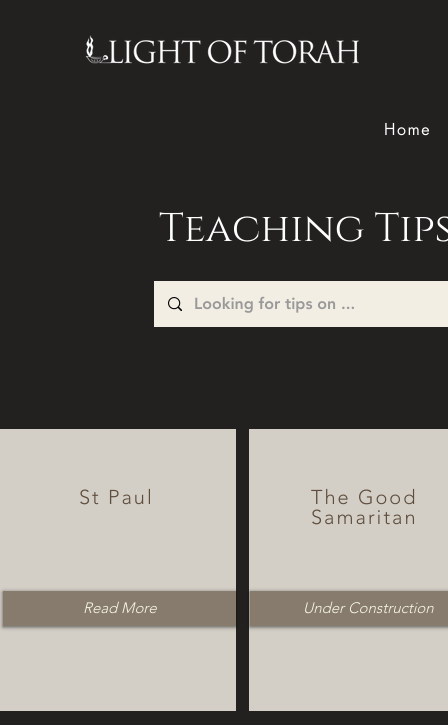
#include <cairo/cairo.h>
#include <math.h>
#include <stddef.h>


static void draw_spaced(cairo_t *cr, double x, double y, const char *s, double letter, double word) {
  cairo_move_to(cr, x, y);
  while (*s) {
    char ch[5] = {0};
    int n = 0;
    do ch[n++] = *s++; while ((*s & 0xC0) == 0x80);
    cairo_show_text(cr, ch);
    cairo_rel_move_to(cr, letter + word * (*ch == ' '), 0);
  }
}

static void rounded_rect(cairo_t *cr, double x, double y, double w, double h, double r) {
  cairo_new_sub_path(cr);
  cairo_arc(cr, x + w - r, y + h - r, r, 0, M_PI / 2);
  cairo_arc(cr, x + r, y + h - r, r, M_PI / 2, M_PI);
  cairo_arc(cr, x + r, y + r, r, M_PI, 1.5 * M_PI);
  cairo_arc(cr, x + w - r, y + r, r, 1.5 * M_PI, 2 * M_PI);
  cairo_close_path(cr);
}

static void draw_shadow(cairo_t *cr, double x, double y, double w, double h, double r, double blur, double alpha) {
  cairo_push_group_with_content(cr, CAIRO_CONTENT_ALPHA);
  cairo_set_operator(cr, CAIRO_OPERATOR_SOURCE);
  for (int i = 15; i >= -15 && fmin(w, h) + blur * i / 3 > 0; i -= 2) {
    double e = blur * i / 6;
    cairo_set_source_rgba(cr, 0, 0, 0, alpha * erfc((i - 1) / 8.5) / 2);
    rounded_rect(cr, x - e, y - e, w + 2 * e, h + 2 * e, fmax(0, fmin(r + e + blur * .6, fmin(w, h) / 2 + e)));
    cairo_fill(cr);
  }
  cairo_pattern_t *soft = cairo_pop_group(cr);
  cairo_mask(cr, soft);
  cairo_pattern_destroy(soft);
}

static void draw_image(cairo_t *cr, const char *path, double x, double y, double w, double h) {
  cairo_surface_t *image = cairo_image_surface_create_from_png(path);
  cairo_save(cr);
  cairo_set_source_surface(cr, image, x, y);
  cairo_rectangle(cr, x, y, w, h);
  cairo_fill(cr);
  cairo_restore(cr);
  cairo_surface_destroy(image);
}

static void draw(cairo_t *cr) {
  cairo_set_source_rgb(cr, 34 / 255.0, 33 / 255.0, 32 / 255.0);
  cairo_paint(cr);
  draw_image(cr, "images/1.png", 85, 35, 274, 29);
  cairo_set_source_rgb(cr, 242 / 255.0, 238 / 255.0, 228 / 255.0);
  cairo_rectangle(cr, 154, 281, 294, 46);
  cairo_fill(cr);
  draw_image(cr, "images/2.png", 168, 297, 14, 14);
  cairo_set_source_rgb(cr, 211 / 255.0, 207 / 255.0, 199 / 255.0);
  cairo_rectangle(cr, 0, 429, 236, 282);
  cairo_fill(cr);
  cairo_set_source_rgb(cr, 0, 0, 0);
  draw_shadow(cr, 3, 592, 233, 35, 0, 2, 0.6);
  cairo_set_source_rgb(cr, 135 / 255.0, 123 / 255.0, 109 / 255.0);
  cairo_rectangle(cr, 3, 591, 233, 35);
  cairo_fill(cr);
  cairo_set_source_rgb(cr, 211 / 255.0, 207 / 255.0, 199 / 255.0);
  cairo_rectangle(cr, 249, 429, 199, 282);
  cairo_fill(cr);
  cairo_set_source_rgb(cr, 0, 0, 0);
  draw_shadow(cr, 250, 592, 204, 35, 0, 2, 0.6);
  cairo_set_source_rgb(cr, 135 / 255.0, 123 / 255.0, 109 / 255.0);
  cairo_rectangle(cr, 250, 591, 198, 35);
  cairo_fill(cr);
  cairo_select_font_face(cr, "futura", CAIRO_FONT_SLANT_NORMAL, CAIRO_FONT_WEIGHT_NORMAL);
  cairo_set_font_size(cr, 16);
  cairo_set_source_rgb(cr, 1, 1, 1);
  draw_spaced(cr, 384, 135, "Home", 1.5, 0);
  cairo_select_font_face(cr, "Cinzel", CAIRO_FONT_SLANT_NORMAL, CAIRO_FONT_WEIGHT_NORMAL);
  cairo_set_font_size(cr, 40);
  cairo_move_to(cr, 159, 241);
  cairo_show_text(cr, "Teaching Tips");
  cairo_select_font_face(cr, "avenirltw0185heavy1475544 Black", CAIRO_FONT_SLANT_NORMAL, CAIRO_FONT_WEIGHT_NORMAL);
  cairo_set_font_size(cr, 16);
  cairo_set_source_rgb(cr, 153 / 255.0, 153 / 255.0, 153 / 255.0);
  cairo_move_to(cr, 194, 309);
  cairo_show_text(cr, "Looking for tips on ...");
  cairo_select_font_face(cr, "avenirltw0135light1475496 Light", CAIRO_FONT_SLANT_NORMAL, CAIRO_FONT_WEIGHT_NORMAL);
  cairo_set_font_size(cr, 20);
  cairo_set_source_rgb(cr, 94 / 255.0, 77 / 255.0, 61 / 255.0);
  draw_spaced(cr, 79, 504, "St Paul", 2, 0);
  cairo_select_font_face(cr, "avenirltw0135light1475496 Light", CAIRO_FONT_SLANT_ITALIC, CAIRO_FONT_WEIGHT_NORMAL);
  cairo_set_font_size(cr, 15);
  cairo_set_source_rgb(cr, 247 / 255.0, 245 / 255.0, 225 / 255.0);
  cairo_move_to(cr, 83, 613);
  cairo_show_text(cr, "Read More");
  cairo_select_font_face(cr, "avenirltw0135light1475496 Light", CAIRO_FONT_SLANT_NORMAL, CAIRO_FONT_WEIGHT_NORMAL);
  cairo_set_font_size(cr, 20);
  cairo_set_source_rgb(cr, 94 / 255.0, 77 / 255.0, 61 / 255.0);
  draw_spaced(cr, 311, 504, "The Good", 2, 0);
  draw_spaced(cr, 311, 524, "Samaritan", 2, 0);
  cairo_select_font_face(cr, "avenirltw0135light1475496 Light", CAIRO_FONT_SLANT_ITALIC, CAIRO_FONT_WEIGHT_NORMAL);
  cairo_set_font_size(cr, 15);
  cairo_set_source_rgb(cr, 247 / 255.0, 245 / 255.0, 225 / 255.0);
  cairo_move_to(cr, 303, 613);
  cairo_show_text(cr, "Under Construction");
}

int main(void) {
  cairo_surface_t *surface = cairo_image_surface_create(CAIRO_FORMAT_RGB24, 448, 725);
  cairo_t *cr = cairo_create(surface);
  cairo_font_options_t *options = cairo_font_options_create();
  cairo_font_options_set_hint_metrics(options, CAIRO_HINT_METRICS_OFF);
  cairo_font_options_set_hint_style(options, CAIRO_HINT_STYLE_NONE);
  cairo_set_font_options(cr, options);
  cairo_set_miter_limit(cr, 4);
  draw(cr);
  cairo_surface_write_to_png(surface, "out.png");
  cairo_font_options_destroy(options);
  cairo_destroy(cr);
  cairo_surface_destroy(surface);
  return 0;
}
